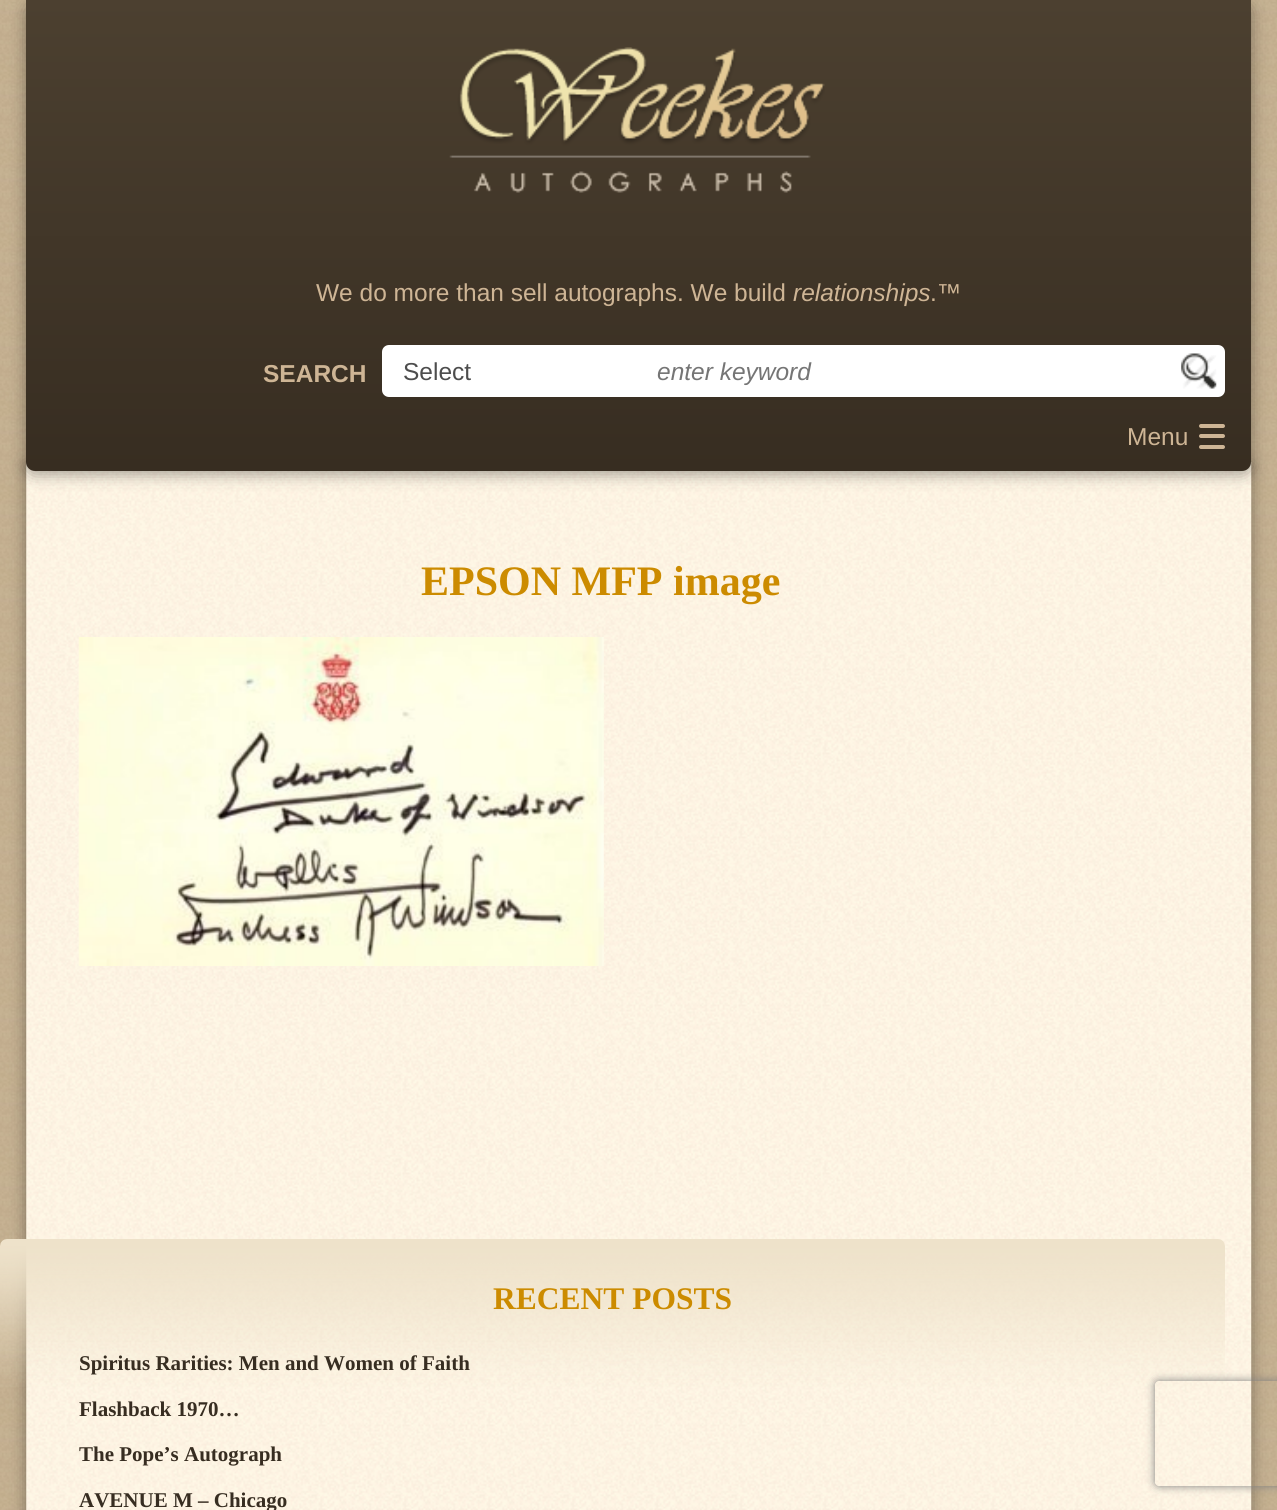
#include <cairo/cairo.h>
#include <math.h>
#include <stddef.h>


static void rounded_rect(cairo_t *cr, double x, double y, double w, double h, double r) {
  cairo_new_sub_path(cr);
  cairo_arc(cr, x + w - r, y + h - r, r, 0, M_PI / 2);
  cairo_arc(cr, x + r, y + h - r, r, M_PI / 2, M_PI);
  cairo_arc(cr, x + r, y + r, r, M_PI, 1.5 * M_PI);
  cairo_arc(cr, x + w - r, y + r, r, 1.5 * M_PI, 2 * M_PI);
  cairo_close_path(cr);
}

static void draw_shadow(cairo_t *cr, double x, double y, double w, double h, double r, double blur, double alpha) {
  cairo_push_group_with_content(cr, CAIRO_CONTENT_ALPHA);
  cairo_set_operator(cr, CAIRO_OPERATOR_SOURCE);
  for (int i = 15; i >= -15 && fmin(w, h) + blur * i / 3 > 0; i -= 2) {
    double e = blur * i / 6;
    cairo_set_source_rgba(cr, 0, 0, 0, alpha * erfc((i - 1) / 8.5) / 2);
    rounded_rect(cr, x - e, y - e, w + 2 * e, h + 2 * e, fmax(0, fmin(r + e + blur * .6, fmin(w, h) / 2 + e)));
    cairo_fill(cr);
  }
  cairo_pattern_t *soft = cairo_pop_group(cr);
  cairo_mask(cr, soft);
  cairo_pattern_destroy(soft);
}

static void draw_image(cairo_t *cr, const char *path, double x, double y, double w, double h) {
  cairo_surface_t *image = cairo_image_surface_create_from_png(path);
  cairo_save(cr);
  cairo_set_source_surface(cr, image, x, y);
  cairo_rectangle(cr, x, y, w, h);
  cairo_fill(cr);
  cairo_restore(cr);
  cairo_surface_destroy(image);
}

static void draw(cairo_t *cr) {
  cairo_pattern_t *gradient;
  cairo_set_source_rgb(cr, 1, 1, 1);
  cairo_paint(cr);
  draw_image(cr, "images/1.png", 0, 0, 1277, 1510);
  cairo_set_source_rgb(cr, 0, 0, 0);
  draw_shadow(cr, 26, 466, 1225, 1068, 0, 8, 0.37);
  draw_image(cr, "images/4.png", 26, 462, 1226, 1048);
  draw_shadow(cr, 26, 4, 1225, 470, 9, 8, 0.37);
  gradient = cairo_pattern_create_linear(639, 0, 639, 471);
  cairo_pattern_add_color_stop_rgba(gradient, 0, 76 / 255.0, 64 / 255.0, 48 / 255.0, 1);
  cairo_pattern_add_color_stop_rgba(gradient, 1, 55 / 255.0, 45 / 255.0, 33 / 255.0, 1);
  cairo_set_source(cr, gradient);
  cairo_pattern_destroy(gradient);
  cairo_new_path(cr);
  cairo_move_to(cr, 26, 0);
  cairo_line_to(cr, 1251, 0);
  cairo_line_to(cr, 1251, 462);
  cairo_curve_to(cr, 1251, 467, 1247, 471, 1242, 471);
  cairo_line_to(cr, 35, 471);
  cairo_curve_to(cr, 30, 471, 26, 467, 26, 462);
  cairo_close_path(cr);
  cairo_fill(cr);
  draw_image(cr, "images/2.png", 449, 47, 376, 146);
  cairo_set_source_rgb(cr, 1, 1, 1);
  rounded_rect(cr, 382, 345, 843, 52, 7);
  cairo_fill(cr);
  draw_image(cr, "images/3.png", 1181, 353, 36, 36);
  cairo_set_source_rgb(cr, 206 / 255.0, 181 / 255.0, 149 / 255.0);
  rounded_rect(cr, 1199, 424, 26, 4, 2);
  cairo_fill(cr);
  rounded_rect(cr, 1199, 434, 26, 4, 2);
  cairo_fill(cr);
  rounded_rect(cr, 1199, 445, 26, 4, 2);
  cairo_fill(cr);
  draw_image(cr, "images/5.png", 78, 637, 526, 329);
  draw_image(cr, "images/6.png", 0, 1239, 1225, 148);
  cairo_save(cr);
  cairo_set_fill_rule(cr, CAIRO_FILL_RULE_EVEN_ODD);
  cairo_new_path(cr);
  cairo_move_to(cr, 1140, 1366);
  cairo_line_to(cr, 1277, 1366);
  cairo_line_to(cr, 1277, 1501);
  cairo_line_to(cr, 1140, 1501);
  cairo_close_path(cr);
  cairo_move_to(cr, 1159, 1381);
  cairo_line_to(cr, 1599, 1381);
  cairo_curve_to(cr, 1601, 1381, 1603, 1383, 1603, 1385);
  cairo_line_to(cr, 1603, 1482);
  cairo_curve_to(cr, 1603, 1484, 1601, 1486, 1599, 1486);
  cairo_line_to(cr, 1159, 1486);
  cairo_curve_to(cr, 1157, 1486, 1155, 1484, 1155, 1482);
  cairo_line_to(cr, 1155, 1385);
  cairo_curve_to(cr, 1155, 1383, 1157, 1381, 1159, 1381);
  cairo_close_path(cr);
  cairo_clip(cr);
  cairo_set_source_rgb(cr, 128 / 255.0, 128 / 255.0, 128 / 255.0);
  draw_shadow(cr, 1155, 1381, 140, 105, 4, 4.5, 1);
  cairo_restore(cr);
  cairo_select_font_face(cr, "Liberation Sans", CAIRO_FONT_SLANT_NORMAL, CAIRO_FONT_WEIGHT_NORMAL);
  cairo_set_font_size(cr, 24.5);
  cairo_move_to(cr, 316, 301);
  cairo_show_text(cr, "We do more than sell autographs. We build");
  cairo_select_font_face(cr, "Liberation Sans", CAIRO_FONT_SLANT_ITALIC, CAIRO_FONT_WEIGHT_NORMAL);
  cairo_move_to(cr, 793, 301);
  cairo_show_text(cr, "relationships");
  cairo_select_font_face(cr, "Liberation Sans", CAIRO_FONT_SLANT_NORMAL, CAIRO_FONT_WEIGHT_NORMAL);
  cairo_move_to(cr, 930, 301);
  cairo_show_text(cr, ".™");
  cairo_select_font_face(cr, "Liberation Sans", CAIRO_FONT_SLANT_NORMAL, CAIRO_FONT_WEIGHT_BOLD);
  cairo_move_to(cr, 263, 382);
  cairo_show_text(cr, "SEARCH");
  cairo_select_font_face(cr, "Liberation Sans", CAIRO_FONT_SLANT_NORMAL, CAIRO_FONT_WEIGHT_NORMAL);
  cairo_set_source_rgb(cr, 77 / 255.0, 77 / 255.0, 77 / 255.0);
  cairo_move_to(cr, 403, 380);
  cairo_show_text(cr, "Select");
  cairo_select_font_face(cr, "Liberation Sans", CAIRO_FONT_SLANT_ITALIC, CAIRO_FONT_WEIGHT_NORMAL);
  cairo_set_source_rgb(cr, 117 / 255.0, 117 / 255.0, 117 / 255.0);
  cairo_move_to(cr, 657, 380);
  cairo_show_text(cr, "enter keyword");
  cairo_select_font_face(cr, "Liberation Sans", CAIRO_FONT_SLANT_NORMAL, CAIRO_FONT_WEIGHT_NORMAL);
  cairo_set_source_rgb(cr, 206 / 255.0, 181 / 255.0, 149 / 255.0);
  cairo_move_to(cr, 1127, 445);
  cairo_show_text(cr, "Menu");
  cairo_select_font_face(cr, "Liberation Serif", CAIRO_FONT_SLANT_NORMAL, CAIRO_FONT_WEIGHT_BOLD);
  cairo_set_font_size(cr, 42);
  cairo_set_source_rgb(cr, 204 / 255.0, 139 / 255.0, 0);
  cairo_move_to(cr, 421, 595);
  cairo_show_text(cr, "EPSON MFP image");
  cairo_set_font_size(cr, 31.5);
  cairo_move_to(cr, 493, 1309);
  cairo_show_text(cr, "RECENT POSTS");
  cairo_set_font_size(cr, 21);
  cairo_set_source_rgb(cr, 55 / 255.0, 45 / 255.0, 33 / 255.0);
  cairo_move_to(cr, 79, 1370);
  cairo_show_text(cr, "Spiritus Rarities: Men and Women of Faith");
  cairo_move_to(cr, 79, 1416);
  cairo_show_text(cr, "Flashback 1970…");
  cairo_move_to(cr, 79, 1461);
  cairo_show_text(cr, "The Pope’s Autograph");
  cairo_move_to(cr, 79, 1507);
  cairo_show_text(cr, "AVENUE M – Chicago");
}

int main(void) {
  cairo_surface_t *surface = cairo_image_surface_create(CAIRO_FORMAT_RGB24, 1277, 1510);
  cairo_t *cr = cairo_create(surface);
  cairo_font_options_t *options = cairo_font_options_create();
  cairo_font_options_set_hint_metrics(options, CAIRO_HINT_METRICS_OFF);
  cairo_font_options_set_hint_style(options, CAIRO_HINT_STYLE_NONE);
  cairo_set_font_options(cr, options);
  cairo_set_miter_limit(cr, 4);
  draw(cr);
  cairo_surface_write_to_png(surface, "out.png");
  cairo_font_options_destroy(options);
  cairo_destroy(cr);
  cairo_surface_destroy(surface);
  return 0;
}
